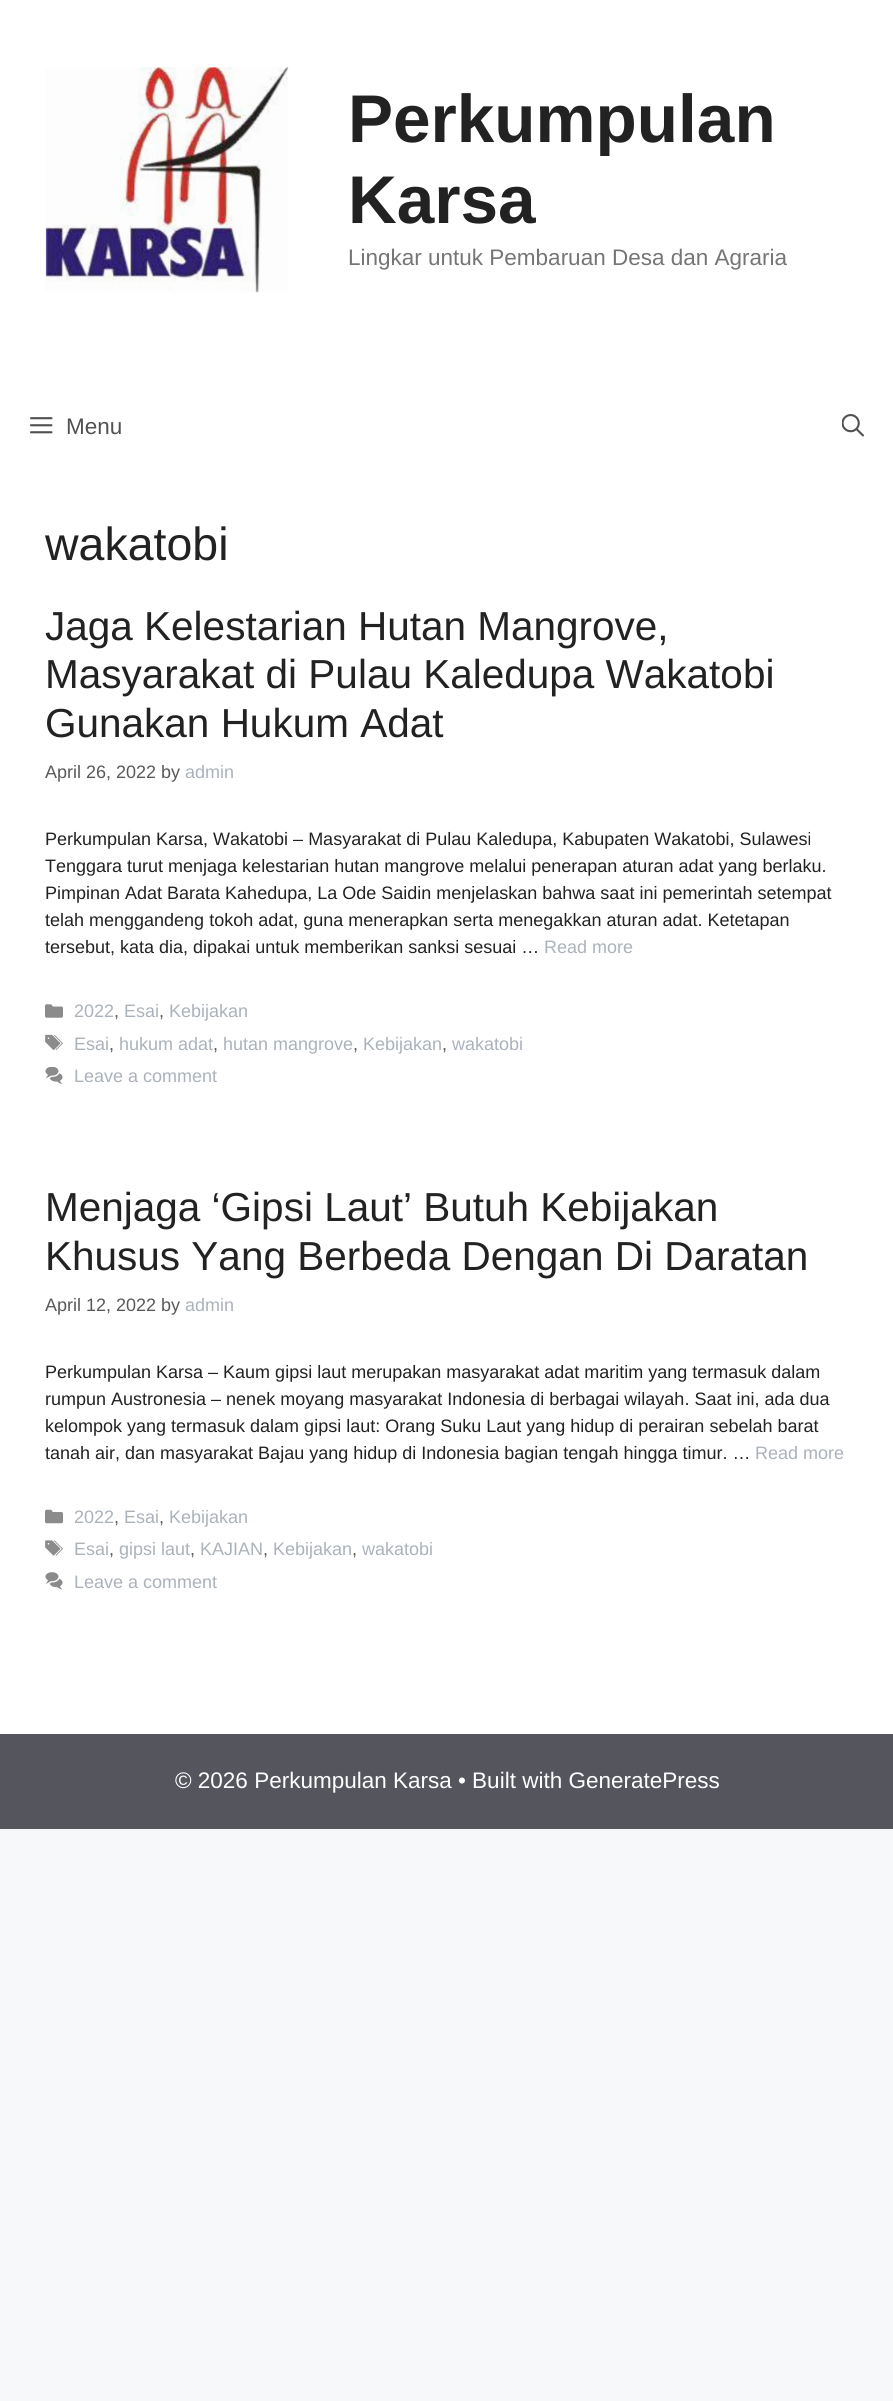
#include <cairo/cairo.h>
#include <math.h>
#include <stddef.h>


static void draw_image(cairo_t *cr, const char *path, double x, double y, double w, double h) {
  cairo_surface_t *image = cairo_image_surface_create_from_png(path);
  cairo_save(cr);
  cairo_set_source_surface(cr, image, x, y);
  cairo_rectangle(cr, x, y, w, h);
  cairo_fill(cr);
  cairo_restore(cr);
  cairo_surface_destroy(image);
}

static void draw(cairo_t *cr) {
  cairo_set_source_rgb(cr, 247 / 255.0, 248 / 255.0, 249 / 255.0);
  cairo_paint(cr);
  cairo_set_source_rgb(cr, 1, 1, 1);
  cairo_rectangle(cr, 0, 0, 893, 1734);
  cairo_fill(cr);
  draw_image(cr, "images/1.png", 45, 67, 244, 226);
  draw_image(cr, "images/2.png", 30, 417, 23, 17);
  draw_image(cr, "images/3.png", 842, 414, 22, 23);
  draw_image(cr, "images/4.png", 45, 1004, 18, 14);
  draw_image(cr, "images/5.png", 45, 1034, 18, 16);
  draw_image(cr, "images/6.png", 45, 1067, 18, 18);
  draw_image(cr, "images/7.png", 45, 1509, 18, 15);
  draw_image(cr, "images/8.png", 45, 1540, 18, 16);
  draw_image(cr, "images/9.png", 45, 1572, 18, 18);
  cairo_set_source_rgb(cr, 85 / 255.0, 85 / 255.0, 94 / 255.0);
  cairo_rectangle(cr, 0, 1734, 893, 95);
  cairo_fill(cr);
  cairo_select_font_face(cr, "Liberation Sans", CAIRO_FONT_SLANT_NORMAL, CAIRO_FONT_WEIGHT_BOLD);
  cairo_set_font_size(cr, 67.5);
  cairo_set_source_rgb(cr, 34 / 255.0, 34 / 255.0, 34 / 255.0);
  cairo_move_to(cr, 348, 142);
  cairo_show_text(cr, "Perkumpulan");
  cairo_move_to(cr, 348, 223);
  cairo_show_text(cr, "Karsa");
  cairo_select_font_face(cr, "Liberation Sans", CAIRO_FONT_SLANT_NORMAL, CAIRO_FONT_WEIGHT_NORMAL);
  cairo_set_font_size(cr, 22.5);
  cairo_set_source_rgb(cr, 117 / 255.0, 117 / 255.0, 117 / 255.0);
  cairo_move_to(cr, 348, 265);
  cairo_show_text(cr, "Lingkar untuk Pembaruan Desa dan Agraria");
  cairo_set_source_rgb(cr, 81 / 255.0, 81 / 255.0, 81 / 255.0);
  cairo_move_to(cr, 66, 434);
  cairo_show_text(cr, "Menu");
  cairo_set_font_size(cr, 46.5);
  cairo_set_source_rgb(cr, 34 / 255.0, 34 / 255.0, 34 / 255.0);
  cairo_move_to(cr, 45, 560);
  cairo_show_text(cr, "wakatobi");
  cairo_set_font_size(cr, 40.5);
  cairo_move_to(cr, 45, 640);
  cairo_show_text(cr, "Jaga Kelestarian Hutan Mangrove,");
  cairo_move_to(cr, 45, 688);
  cairo_show_text(cr, "Masyarakat di Pulau Kaledupa Wakatobi");
  cairo_move_to(cr, 45, 737);
  cairo_show_text(cr, "Gunakan Hukum Adat");
  cairo_set_font_size(cr, 18);
  cairo_set_source_rgb(cr, 89 / 255.0, 89 / 255.0, 89 / 255.0);
  cairo_move_to(cr, 45, 778);
  cairo_show_text(cr, "April 26, 2022 by");
  cairo_set_source_rgb(cr, 171 / 255.0, 178 / 255.0, 186 / 255.0);
  cairo_move_to(cr, 185, 778);
  cairo_show_text(cr, "admin");
  cairo_set_source_rgb(cr, 34 / 255.0, 34 / 255.0, 34 / 255.0);
  cairo_move_to(cr, 45, 845);
  cairo_show_text(cr, "Perkumpulan Karsa, Wakatobi – Masyarakat di Pulau Kaledupa, Kabupaten Wakatobi, Sulawesi");
  cairo_move_to(cr, 45, 872);
  cairo_show_text(cr, "Tenggara turut menjaga kelestarian hutan mangrove melalui penerapan aturan adat yang berlaku.");
  cairo_move_to(cr, 45, 899);
  cairo_show_text(cr, "Pimpinan Adat Barata Kahedupa, La Ode Saidin menjelaskan bahwa saat ini pemerintah setempat");
  cairo_move_to(cr, 45, 926);
  cairo_show_text(cr, "telah menggandeng tokoh adat, guna menerapkan serta menegakkan aturan adat. Ketetapan");
  cairo_move_to(cr, 45, 953);
  cairo_show_text(cr, "tersebut, kata dia, dipakai untuk memberikan sanksi sesuai …");
  cairo_set_source_rgb(cr, 171 / 255.0, 178 / 255.0, 186 / 255.0);
  cairo_move_to(cr, 544, 953);
  cairo_show_text(cr, "Read more");
  cairo_move_to(cr, 74, 1017);
  cairo_show_text(cr, "2022");
  cairo_set_source_rgb(cr, 89 / 255.0, 89 / 255.0, 89 / 255.0);
  cairo_move_to(cr, 114, 1017);
  cairo_show_text(cr, ",");
  cairo_set_source_rgb(cr, 171 / 255.0, 178 / 255.0, 186 / 255.0);
  cairo_move_to(cr, 124, 1017);
  cairo_show_text(cr, "Esai");
  cairo_set_source_rgb(cr, 89 / 255.0, 89 / 255.0, 89 / 255.0);
  cairo_move_to(cr, 159, 1017);
  cairo_show_text(cr, ",");
  cairo_set_source_rgb(cr, 171 / 255.0, 178 / 255.0, 186 / 255.0);
  cairo_move_to(cr, 169, 1017);
  cairo_show_text(cr, "Kebijakan");
  cairo_move_to(cr, 74, 1050);
  cairo_show_text(cr, "Esai");
  cairo_set_source_rgb(cr, 89 / 255.0, 89 / 255.0, 89 / 255.0);
  cairo_move_to(cr, 109, 1050);
  cairo_show_text(cr, ",");
  cairo_set_source_rgb(cr, 171 / 255.0, 178 / 255.0, 186 / 255.0);
  cairo_move_to(cr, 119, 1050);
  cairo_show_text(cr, "hukum adat");
  cairo_set_source_rgb(cr, 89 / 255.0, 89 / 255.0, 89 / 255.0);
  cairo_move_to(cr, 213, 1050);
  cairo_show_text(cr, ",");
  cairo_set_source_rgb(cr, 171 / 255.0, 178 / 255.0, 186 / 255.0);
  cairo_move_to(cr, 223, 1050);
  cairo_show_text(cr, "hutan mangrove");
  cairo_set_source_rgb(cr, 89 / 255.0, 89 / 255.0, 89 / 255.0);
  cairo_move_to(cr, 353, 1050);
  cairo_show_text(cr, ",");
  cairo_set_source_rgb(cr, 171 / 255.0, 178 / 255.0, 186 / 255.0);
  cairo_move_to(cr, 363, 1050);
  cairo_show_text(cr, "Kebijakan");
  cairo_set_source_rgb(cr, 89 / 255.0, 89 / 255.0, 89 / 255.0);
  cairo_move_to(cr, 442, 1050);
  cairo_show_text(cr, ",");
  cairo_set_source_rgb(cr, 171 / 255.0, 178 / 255.0, 186 / 255.0);
  cairo_move_to(cr, 452, 1050);
  cairo_show_text(cr, "wakatobi");
  cairo_move_to(cr, 74, 1082);
  cairo_show_text(cr, "Leave a comment");
  cairo_set_font_size(cr, 40.5);
  cairo_set_source_rgb(cr, 34 / 255.0, 34 / 255.0, 34 / 255.0);
  cairo_move_to(cr, 45, 1221);
  cairo_show_text(cr, "Menjaga ‘Gipsi Laut’ Butuh Kebijakan");
  cairo_move_to(cr, 45, 1270);
  cairo_show_text(cr, "Khusus Yang Berbeda Dengan Di Daratan");
  cairo_set_font_size(cr, 18);
  cairo_set_source_rgb(cr, 89 / 255.0, 89 / 255.0, 89 / 255.0);
  cairo_move_to(cr, 45, 1311);
  cairo_show_text(cr, "April 12, 2022 by");
  cairo_set_source_rgb(cr, 171 / 255.0, 178 / 255.0, 186 / 255.0);
  cairo_move_to(cr, 185, 1311);
  cairo_show_text(cr, "admin");
  cairo_set_source_rgb(cr, 34 / 255.0, 34 / 255.0, 34 / 255.0);
  cairo_move_to(cr, 45, 1378);
  cairo_show_text(cr, "Perkumpulan Karsa – Kaum gipsi laut merupakan masyarakat adat maritim yang termasuk dalam");
  cairo_move_to(cr, 45, 1405);
  cairo_show_text(cr, "rumpun Austronesia – nenek moyang masyarakat Indonesia di berbagai wilayah. Saat ini, ada dua");
  cairo_move_to(cr, 45, 1432);
  cairo_show_text(cr, "kelompok yang termasuk dalam gipsi laut: Orang Suku Laut yang hidup di perairan sebelah barat");
  cairo_move_to(cr, 45, 1459);
  cairo_show_text(cr, "tanah air, dan masyarakat Bajau yang hidup di Indonesia bagian tengah hingga timur. …");
  cairo_set_source_rgb(cr, 171 / 255.0, 178 / 255.0, 186 / 255.0);
  cairo_move_to(cr, 755, 1459);
  cairo_show_text(cr, "Read more");
  cairo_move_to(cr, 74, 1523);
  cairo_show_text(cr, "2022");
  cairo_set_source_rgb(cr, 89 / 255.0, 89 / 255.0, 89 / 255.0);
  cairo_move_to(cr, 114, 1523);
  cairo_show_text(cr, ",");
  cairo_set_source_rgb(cr, 171 / 255.0, 178 / 255.0, 186 / 255.0);
  cairo_move_to(cr, 124, 1523);
  cairo_show_text(cr, "Esai");
  cairo_set_source_rgb(cr, 89 / 255.0, 89 / 255.0, 89 / 255.0);
  cairo_move_to(cr, 159, 1523);
  cairo_show_text(cr, ",");
  cairo_set_source_rgb(cr, 171 / 255.0, 178 / 255.0, 186 / 255.0);
  cairo_move_to(cr, 169, 1523);
  cairo_show_text(cr, "Kebijakan");
  cairo_move_to(cr, 74, 1555);
  cairo_show_text(cr, "Esai");
  cairo_set_source_rgb(cr, 89 / 255.0, 89 / 255.0, 89 / 255.0);
  cairo_move_to(cr, 109, 1555);
  cairo_show_text(cr, ",");
  cairo_set_source_rgb(cr, 171 / 255.0, 178 / 255.0, 186 / 255.0);
  cairo_move_to(cr, 119, 1555);
  cairo_show_text(cr, "gipsi laut");
  cairo_set_source_rgb(cr, 89 / 255.0, 89 / 255.0, 89 / 255.0);
  cairo_move_to(cr, 190, 1555);
  cairo_show_text(cr, ",");
  cairo_set_source_rgb(cr, 171 / 255.0, 178 / 255.0, 186 / 255.0);
  cairo_move_to(cr, 200, 1555);
  cairo_show_text(cr, "KAJIAN");
  cairo_set_source_rgb(cr, 89 / 255.0, 89 / 255.0, 89 / 255.0);
  cairo_move_to(cr, 263, 1555);
  cairo_show_text(cr, ",");
  cairo_set_source_rgb(cr, 171 / 255.0, 178 / 255.0, 186 / 255.0);
  cairo_move_to(cr, 273, 1555);
  cairo_show_text(cr, "Kebijakan");
  cairo_set_source_rgb(cr, 89 / 255.0, 89 / 255.0, 89 / 255.0);
  cairo_move_to(cr, 352, 1555);
  cairo_show_text(cr, ",");
  cairo_set_source_rgb(cr, 171 / 255.0, 178 / 255.0, 186 / 255.0);
  cairo_move_to(cr, 362, 1555);
  cairo_show_text(cr, "wakatobi");
  cairo_move_to(cr, 74, 1588);
  cairo_show_text(cr, "Leave a comment");
  cairo_set_font_size(cr, 22.5);
  cairo_set_source_rgb(cr, 1, 1, 1);
  cairo_move_to(cr, 175, 1788);
  cairo_show_text(cr, "© 2026 Perkumpulan Karsa • Built with GeneratePress");
}

int main(void) {
  cairo_surface_t *surface = cairo_image_surface_create(CAIRO_FORMAT_RGB24, 893, 2401);
  cairo_t *cr = cairo_create(surface);
  cairo_font_options_t *options = cairo_font_options_create();
  cairo_font_options_set_hint_metrics(options, CAIRO_HINT_METRICS_OFF);
  cairo_font_options_set_hint_style(options, CAIRO_HINT_STYLE_NONE);
  cairo_set_font_options(cr, options);
  cairo_set_miter_limit(cr, 4);
  draw(cr);
  cairo_surface_write_to_png(surface, "out.png");
  cairo_font_options_destroy(options);
  cairo_destroy(cr);
  cairo_surface_destroy(surface);
  return 0;
}
